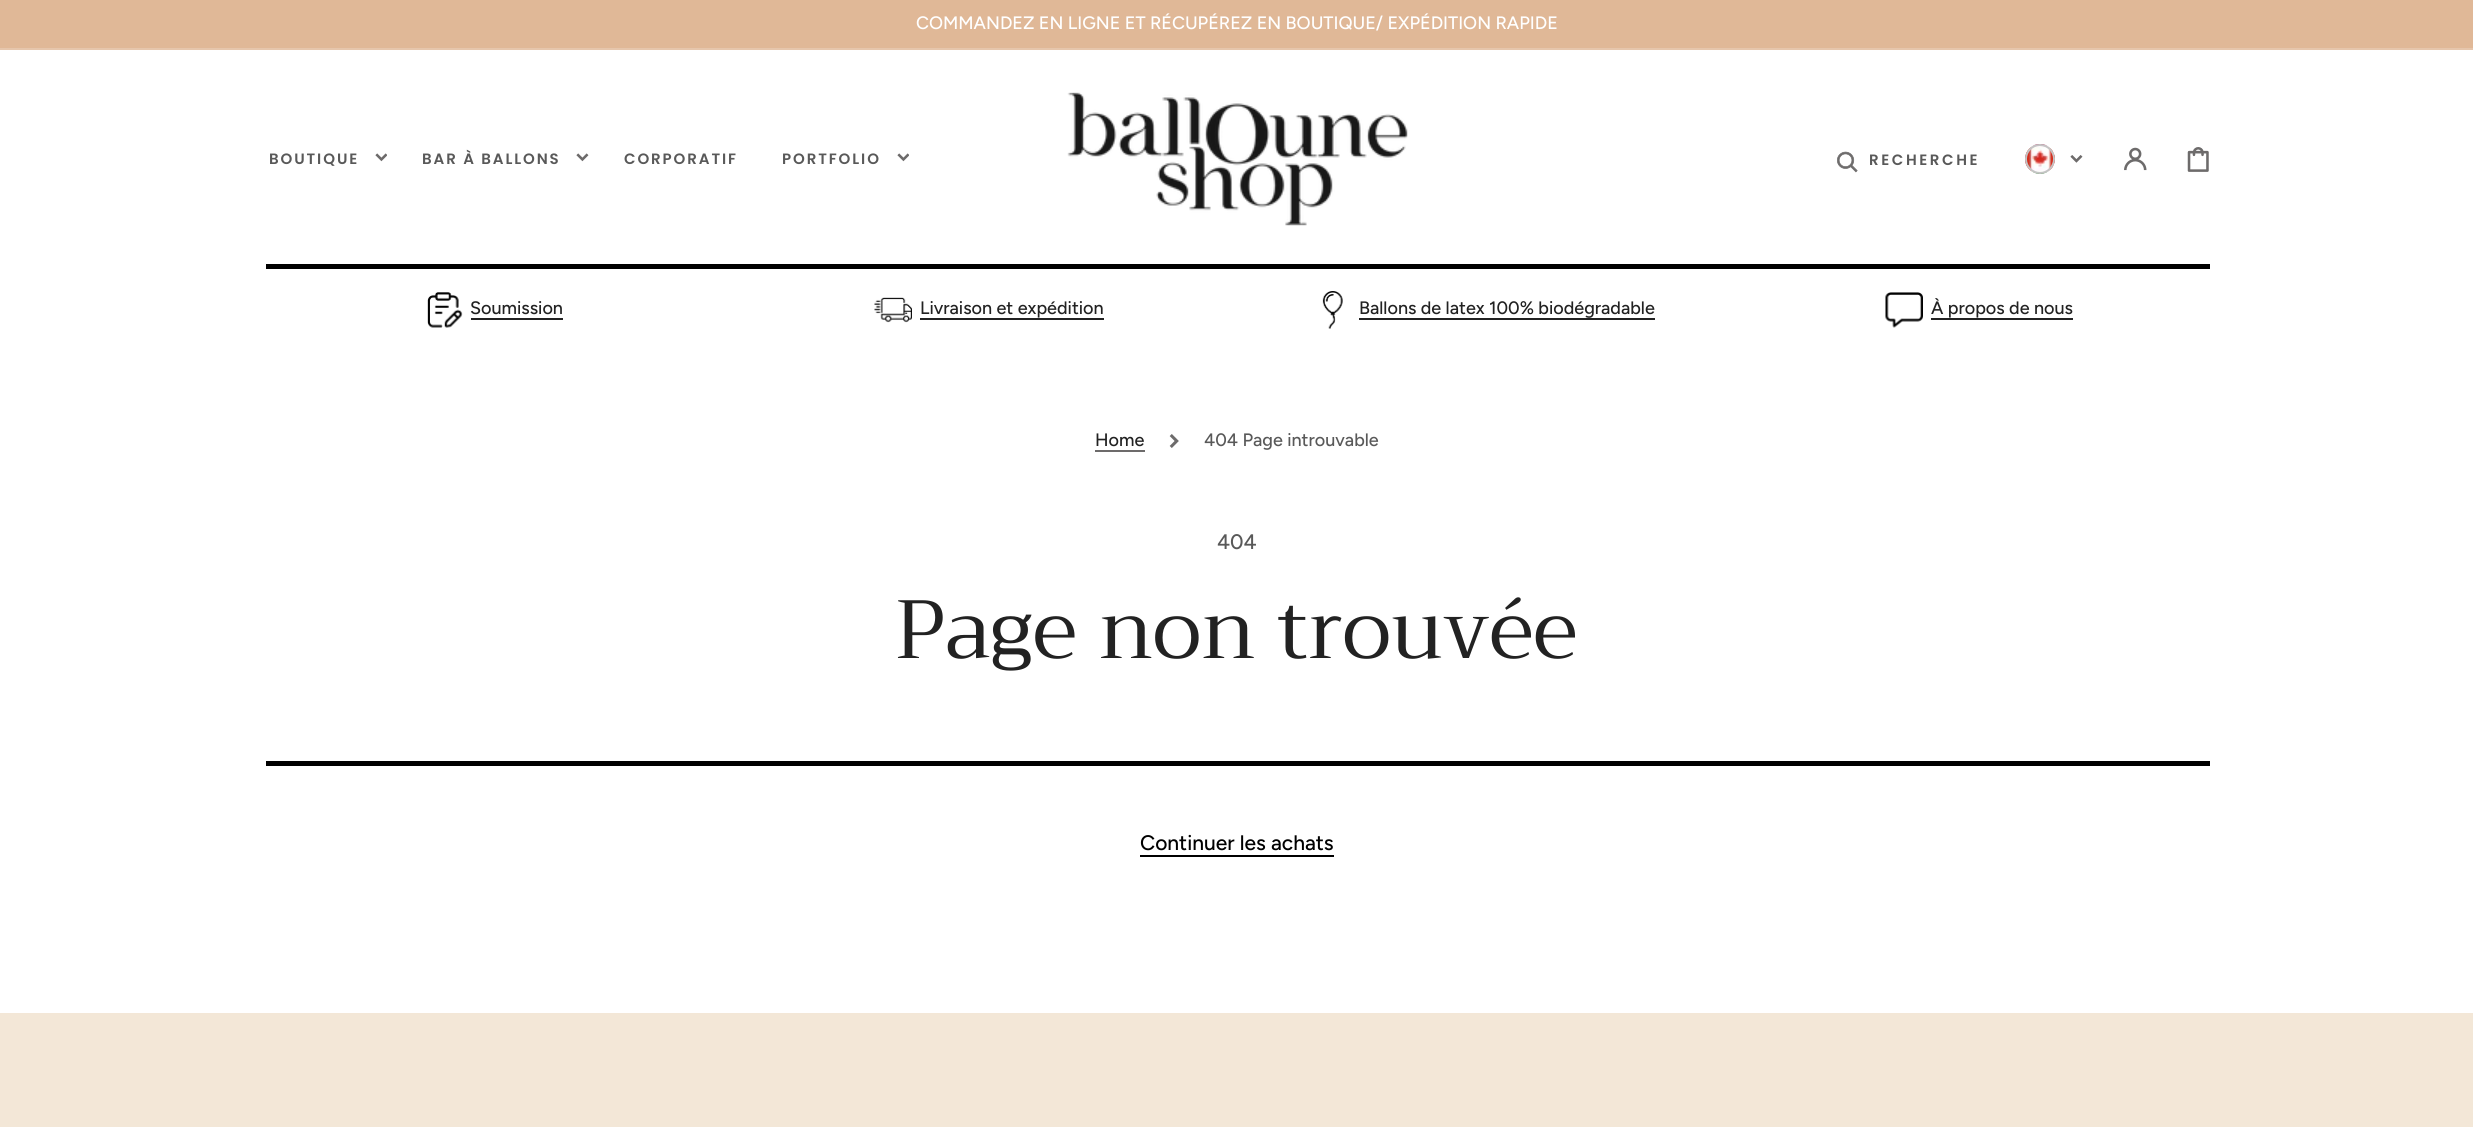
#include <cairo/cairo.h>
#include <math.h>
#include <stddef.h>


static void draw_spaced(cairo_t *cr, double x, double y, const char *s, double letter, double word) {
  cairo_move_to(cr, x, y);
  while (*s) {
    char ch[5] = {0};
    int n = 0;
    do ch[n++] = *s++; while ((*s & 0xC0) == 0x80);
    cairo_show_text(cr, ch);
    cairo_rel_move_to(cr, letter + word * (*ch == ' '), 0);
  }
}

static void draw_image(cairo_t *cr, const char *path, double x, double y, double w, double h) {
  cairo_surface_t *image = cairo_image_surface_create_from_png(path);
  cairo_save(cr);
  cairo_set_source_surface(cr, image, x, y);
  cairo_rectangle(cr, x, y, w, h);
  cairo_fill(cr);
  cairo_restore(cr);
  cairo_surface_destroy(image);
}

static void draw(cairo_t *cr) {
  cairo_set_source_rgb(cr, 1, 1, 1);
  cairo_paint(cr);
  cairo_set_source_rgb(cr, 224 / 255.0, 184 / 255.0, 151 / 255.0);
  cairo_rectangle(cr, 0, 0, 2473, 48);
  cairo_fill(cr);
  cairo_set_source_rgb(cr, 230 / 255.0, 198 / 255.0, 172 / 255.0);
  cairo_rectangle(cr, 0, 48, 2473, 2);
  cairo_fill(cr);
  draw_image(cr, "images/1.png", 375, 153, 12, 9);
  draw_image(cr, "images/2.png", 576, 153, 13, 9);
  draw_image(cr, "images/1.png", 897, 153, 12, 9);
  draw_image(cr, "images/3.png", 1067, 92, 341, 134);
  draw_image(cr, "images/4.png", 1837, 151, 21, 22);
  draw_image(cr, "images/5.png", 2025, 144, 30, 30);
  cairo_arc(cr, 2040, 159, 14, 0, 2 * M_PI);
  cairo_set_source_rgb(cr, 196 / 255.0, 196 / 255.0, 196 / 255.0);
  cairo_stroke(cr);
  draw_image(cr, "images/6.png", 2070, 155, 13, 8);
  draw_image(cr, "images/7.png", 2124, 147, 23, 24);
  draw_image(cr, "images/8.png", 2187, 147, 22, 25);
  cairo_set_source_rgb(cr, 0, 0, 0);
  cairo_rectangle(cr, 266, 264, 1944, 5);
  cairo_fill(cr);
  draw_image(cr, "images/9.png", 427, 292, 36, 36);
  cairo_set_source_rgb(cr, 34 / 255.0, 34 / 255.0, 34 / 255.0);
  cairo_rectangle(cr, 471, 318, 92, 2);
  cairo_fill(cr);
  draw_image(cr, "images/10.png", 874, 297, 38, 26);
  cairo_rectangle(cr, 920, 318, 184, 2);
  cairo_fill(cr);
  draw_image(cr, "images/11.png", 1322, 291, 21, 38);
  cairo_rectangle(cr, 1359, 318, 296, 2);
  cairo_fill(cr);
  draw_image(cr, "images/12.png", 1885, 292, 38, 36);
  cairo_rectangle(cr, 1931, 318, 142, 2);
  cairo_fill(cr);
  cairo_set_source_rgb(cr, 109 / 255.0, 107 / 255.0, 107 / 255.0);
  cairo_rectangle(cr, 1095, 450, 50, 2);
  cairo_fill(cr);
  draw_image(cr, "images/13.png", 1169, 434, 10, 14);
  cairo_set_source_rgb(cr, 0, 0, 0);
  cairo_rectangle(cr, 266, 761, 1944, 5);
  cairo_fill(cr);
  cairo_rectangle(cr, 1140, 855, 194, 2);
  cairo_fill(cr);
  cairo_set_source_rgb(cr, 243 / 255.0, 231 / 255.0, 215 / 255.0);
  cairo_rectangle(cr, 0, 1013, 2473, 114);
  cairo_fill(cr);
  cairo_select_font_face(cr, "Figtree Medium", CAIRO_FONT_SLANT_NORMAL, CAIRO_FONT_WEIGHT_NORMAL);
  cairo_set_font_size(cr, 18);
  cairo_set_source_rgb(cr, 1, 1, 1);
  cairo_move_to(cr, 916, 29);
  cairo_show_text(cr, "COMMANDEZ EN LIGNE ET RÉCUPÉREZ EN BOUTIQUE/ EXPÉDITION RAPIDE");
  cairo_select_font_face(cr, "Poppins SemiBold", CAIRO_FONT_SLANT_NORMAL, CAIRO_FONT_WEIGHT_NORMAL);
  cairo_set_font_size(cr, 15);
  cairo_set_source_rgb(cr, 89 / 255.0, 89 / 255.0, 89 / 255.0);
  draw_spaced(cr, 269, 164, "BOUTIQUE", 1.9, 0);
  draw_spaced(cr, 422, 164, "BAR À BALLONS", 1.9, 0);
  draw_spaced(cr, 624, 164, "CORPORATIF", 1.9, 0);
  draw_spaced(cr, 782, 164, "PORTFOLIO", 1.9, 0);
  draw_spaced(cr, 1869, 165, "RECHERCHE", 2.6, 0);
  cairo_select_font_face(cr, "Figtree Medium", CAIRO_FONT_SLANT_NORMAL, CAIRO_FONT_WEIGHT_NORMAL);
  cairo_set_font_size(cr, 18);
  cairo_set_source_rgb(cr, 34 / 255.0, 34 / 255.0, 34 / 255.0);
  cairo_move_to(cr, 470, 314);
  cairo_show_text(cr, "Soumission");
  cairo_move_to(cr, 920, 314);
  cairo_show_text(cr, "Livraison et expédition");
  cairo_move_to(cr, 1359, 314);
  cairo_show_text(cr, "Ballons de latex 100% biodégradable");
  cairo_move_to(cr, 1931, 314);
  cairo_show_text(cr, "À propos de nous");
  cairo_move_to(cr, 1095, 446);
  cairo_show_text(cr, "Home");
  cairo_set_source_rgb(cr, 89 / 255.0, 89 / 255.0, 89 / 255.0);
  cairo_move_to(cr, 1204, 446);
  cairo_show_text(cr, "404 Page introuvable");
  cairo_set_font_size(cr, 21);
  cairo_move_to(cr, 1217, 549);
  cairo_show_text(cr, "404");
  cairo_select_font_face(cr, "Trirong", CAIRO_FONT_SLANT_NORMAL, CAIRO_FONT_WEIGHT_NORMAL);
  cairo_set_font_size(cr, 82.5);
  cairo_set_source_rgb(cr, 34 / 255.0, 34 / 255.0, 34 / 255.0);
  cairo_move_to(cr, 895, 658);
  cairo_show_text(cr, "Page non trouvée");
  cairo_select_font_face(cr, "Figtree Medium", CAIRO_FONT_SLANT_NORMAL, CAIRO_FONT_WEIGHT_NORMAL);
  cairo_set_font_size(cr, 21);
  cairo_set_source_rgb(cr, 0, 0, 0);
  cairo_move_to(cr, 1140, 850);
  cairo_show_text(cr, "Continuer les achats");
}

int main(void) {
  cairo_surface_t *surface = cairo_image_surface_create(CAIRO_FORMAT_RGB24, 2473, 1127);
  cairo_t *cr = cairo_create(surface);
  cairo_font_options_t *options = cairo_font_options_create();
  cairo_font_options_set_hint_metrics(options, CAIRO_HINT_METRICS_OFF);
  cairo_font_options_set_hint_style(options, CAIRO_HINT_STYLE_NONE);
  cairo_set_font_options(cr, options);
  cairo_set_miter_limit(cr, 4);
  draw(cr);
  cairo_surface_write_to_png(surface, "out.png");
  cairo_font_options_destroy(options);
  cairo_destroy(cr);
  cairo_surface_destroy(surface);
  return 0;
}
